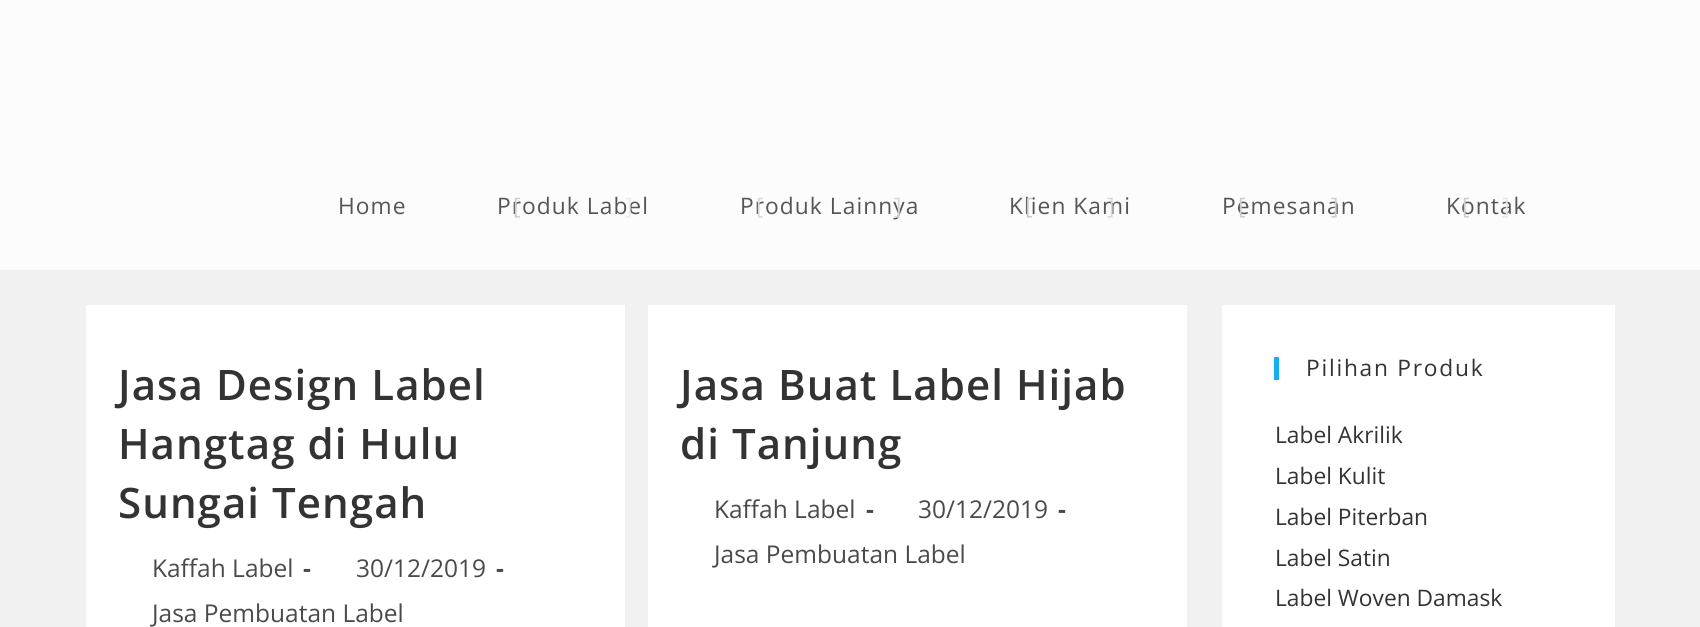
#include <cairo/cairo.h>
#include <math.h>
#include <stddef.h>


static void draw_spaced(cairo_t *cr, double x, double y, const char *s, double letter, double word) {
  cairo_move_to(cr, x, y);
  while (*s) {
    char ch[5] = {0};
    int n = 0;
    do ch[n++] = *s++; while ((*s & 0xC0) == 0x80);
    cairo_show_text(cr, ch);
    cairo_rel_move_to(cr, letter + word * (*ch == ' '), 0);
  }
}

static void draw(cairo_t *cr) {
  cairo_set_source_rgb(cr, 241 / 255.0, 241 / 255.0, 241 / 255.0);
  cairo_paint(cr);
  cairo_set_source_rgb(cr, 252 / 255.0, 252 / 255.0, 252 / 255.0);
  cairo_rectangle(cr, 0, 0, 1700, 270);
  cairo_fill(cr);
  cairo_set_source_rgb(cr, 1, 1, 1);
  cairo_rectangle(cr, 86, 305, 539, 322);
  cairo_fill(cr);
  cairo_rectangle(cr, 648, 305, 539, 322);
  cairo_fill(cr);
  cairo_rectangle(cr, 1222, 305, 393, 322);
  cairo_fill(cr);
  cairo_set_source_rgb(cr, 19 / 255.0, 175 / 255.0, 240 / 255.0);
  cairo_rectangle(cr, 1274, 357, 5, 23);
  cairo_fill(cr);
  cairo_select_font_face(cr, "Open Sans", CAIRO_FONT_SLANT_NORMAL, CAIRO_FONT_WEIGHT_NORMAL);
  cairo_set_font_size(cr, 22.75);
  cairo_set_source_rgb(cr, 85 / 255.0, 85 / 255.0, 85 / 255.0);
  draw_spaced(cr, 338, 214, "Home", 1.05, 0);
  draw_spaced(cr, 497, 214, "Produk Label", 1.05, 0);
  cairo_set_source_rgb(cr, 206 / 255.0, 206 / 255.0, 206 / 255.0);
  draw_spaced(cr, 513, 214, "[", 1.05, 0);
  cairo_set_source_rgb(cr, 235 / 255.0, 235 / 255.0, 235 / 255.0);
  draw_spaced(cr, 625, 214, "]", 1.05, 0);
  cairo_set_source_rgb(cr, 85 / 255.0, 85 / 255.0, 85 / 255.0);
  draw_spaced(cr, 740, 214, "Produk Lainnya", 1.05, 0);
  cairo_set_source_rgb(cr, 217 / 255.0, 217 / 255.0, 217 / 255.0);
  draw_spaced(cr, 756, 214, "[", 1.05, 0);
  draw_spaced(cr, 894, 214, "]", 1.05, 0);
  cairo_set_source_rgb(cr, 85 / 255.0, 85 / 255.0, 85 / 255.0);
  draw_spaced(cr, 1009, 214, "Klien Kami", 1.05, 0);
  cairo_set_source_rgb(cr, 199 / 255.0, 199 / 255.0, 199 / 255.0);
  draw_spaced(cr, 1025, 214, "[", 1.05, 0);
  cairo_set_source_rgb(cr, 217 / 255.0, 217 / 255.0, 217 / 255.0);
  draw_spaced(cr, 1107, 214, "]", 1.05, 0);
  cairo_set_source_rgb(cr, 85 / 255.0, 85 / 255.0, 85 / 255.0);
  draw_spaced(cr, 1222, 214, "Pemesanan", 1.05, 0);
  cairo_set_source_rgb(cr, 206 / 255.0, 206 / 255.0, 206 / 255.0);
  draw_spaced(cr, 1238, 214, "[", 1.05, 0);
  draw_spaced(cr, 1331, 214, "]", 1.05, 0);
  cairo_set_source_rgb(cr, 85 / 255.0, 85 / 255.0, 85 / 255.0);
  draw_spaced(cr, 1446, 214, "Kontak", 1.05, 0);
  cairo_set_source_rgb(cr, 206 / 255.0, 206 / 255.0, 206 / 255.0);
  draw_spaced(cr, 1462, 214, "[", 1.05, 0);
  cairo_set_source_rgb(cr, 229 / 255.0, 229 / 255.0, 229 / 255.0);
  draw_spaced(cr, 1502, 214, "]", 1.05, 0);
  cairo_select_font_face(cr, "Open Sans SemiBold", CAIRO_FONT_SLANT_NORMAL, CAIRO_FONT_WEIGHT_NORMAL);
  cairo_set_font_size(cr, 42);
  cairo_set_source_rgb(cr, 51 / 255.0, 51 / 255.0, 51 / 255.0);
  draw_spaced(cr, 118, 400, "Jasa Design Label", 1.05, 0);
  draw_spaced(cr, 118, 459, "Hangtag di Hulu", 1.05, 0);
  draw_spaced(cr, 118, 518, "Sungai Tengah", 1.05, 0);
  cairo_select_font_face(cr, "Open Sans", CAIRO_FONT_SLANT_NORMAL, CAIRO_FONT_WEIGHT_NORMAL);
  cairo_set_font_size(cr, 24.5);
  cairo_set_source_rgb(cr, 74 / 255.0, 74 / 255.0, 74 / 255.0);
  cairo_move_to(cr, 152, 577);
  cairo_show_text(cr, "Kaffah Label");
  cairo_select_font_face(cr, "Open Sans", CAIRO_FONT_SLANT_NORMAL, CAIRO_FONT_WEIGHT_BOLD);
  cairo_move_to(cr, 303, 577);
  cairo_show_text(cr, "-");
  cairo_select_font_face(cr, "Open Sans", CAIRO_FONT_SLANT_NORMAL, CAIRO_FONT_WEIGHT_NORMAL);
  cairo_move_to(cr, 356, 577);
  cairo_show_text(cr, "30/12/2019");
  cairo_select_font_face(cr, "Open Sans", CAIRO_FONT_SLANT_NORMAL, CAIRO_FONT_WEIGHT_BOLD);
  cairo_move_to(cr, 496, 577);
  cairo_show_text(cr, "-");
  cairo_select_font_face(cr, "Open Sans", CAIRO_FONT_SLANT_NORMAL, CAIRO_FONT_WEIGHT_NORMAL);
  cairo_move_to(cr, 152, 622);
  cairo_show_text(cr, "Jasa Pembuatan Label");
  cairo_select_font_face(cr, "Open Sans SemiBold", CAIRO_FONT_SLANT_NORMAL, CAIRO_FONT_WEIGHT_NORMAL);
  cairo_set_font_size(cr, 42);
  cairo_set_source_rgb(cr, 51 / 255.0, 51 / 255.0, 51 / 255.0);
  draw_spaced(cr, 680, 400, "Jasa Buat Label Hijab", 1.05, 0);
  draw_spaced(cr, 680, 459, "di Tanjung", 1.05, 0);
  cairo_select_font_face(cr, "Open Sans", CAIRO_FONT_SLANT_NORMAL, CAIRO_FONT_WEIGHT_NORMAL);
  cairo_set_font_size(cr, 24.5);
  cairo_set_source_rgb(cr, 74 / 255.0, 74 / 255.0, 74 / 255.0);
  cairo_move_to(cr, 714, 518);
  cairo_show_text(cr, "Kaffah Label");
  cairo_select_font_face(cr, "Open Sans", CAIRO_FONT_SLANT_NORMAL, CAIRO_FONT_WEIGHT_BOLD);
  cairo_move_to(cr, 866, 518);
  cairo_show_text(cr, "-");
  cairo_select_font_face(cr, "Open Sans", CAIRO_FONT_SLANT_NORMAL, CAIRO_FONT_WEIGHT_NORMAL);
  cairo_move_to(cr, 918, 518);
  cairo_show_text(cr, "30/12/2019");
  cairo_select_font_face(cr, "Open Sans", CAIRO_FONT_SLANT_NORMAL, CAIRO_FONT_WEIGHT_BOLD);
  cairo_move_to(cr, 1058, 518);
  cairo_show_text(cr, "-");
  cairo_select_font_face(cr, "Open Sans", CAIRO_FONT_SLANT_NORMAL, CAIRO_FONT_WEIGHT_NORMAL);
  cairo_move_to(cr, 714, 563);
  cairo_show_text(cr, "Jasa Pembuatan Label");
  cairo_set_font_size(cr, 22.75);
  cairo_set_source_rgb(cr, 51 / 255.0, 51 / 255.0, 51 / 255.0);
  draw_spaced(cr, 1306, 376, "Pilihan Produk", 1.75, 0);
  cairo_move_to(cr, 1275, 443);
  cairo_show_text(cr, "Label Akrilik");
  cairo_move_to(cr, 1275, 484);
  cairo_show_text(cr, "Label Kulit");
  cairo_move_to(cr, 1275, 525);
  cairo_show_text(cr, "Label Piterban");
  cairo_move_to(cr, 1275, 566);
  cairo_show_text(cr, "Label Satin");
  cairo_move_to(cr, 1275, 606);
  cairo_show_text(cr, "Label Woven Damask");
}

int main(void) {
  cairo_surface_t *surface = cairo_image_surface_create(CAIRO_FORMAT_RGB24, 1700, 627);
  cairo_t *cr = cairo_create(surface);
  cairo_font_options_t *options = cairo_font_options_create();
  cairo_font_options_set_hint_metrics(options, CAIRO_HINT_METRICS_OFF);
  cairo_font_options_set_hint_style(options, CAIRO_HINT_STYLE_NONE);
  cairo_set_font_options(cr, options);
  cairo_set_miter_limit(cr, 4);
  draw(cr);
  cairo_surface_write_to_png(surface, "out.png");
  cairo_font_options_destroy(options);
  cairo_destroy(cr);
  cairo_surface_destroy(surface);
  return 0;
}
